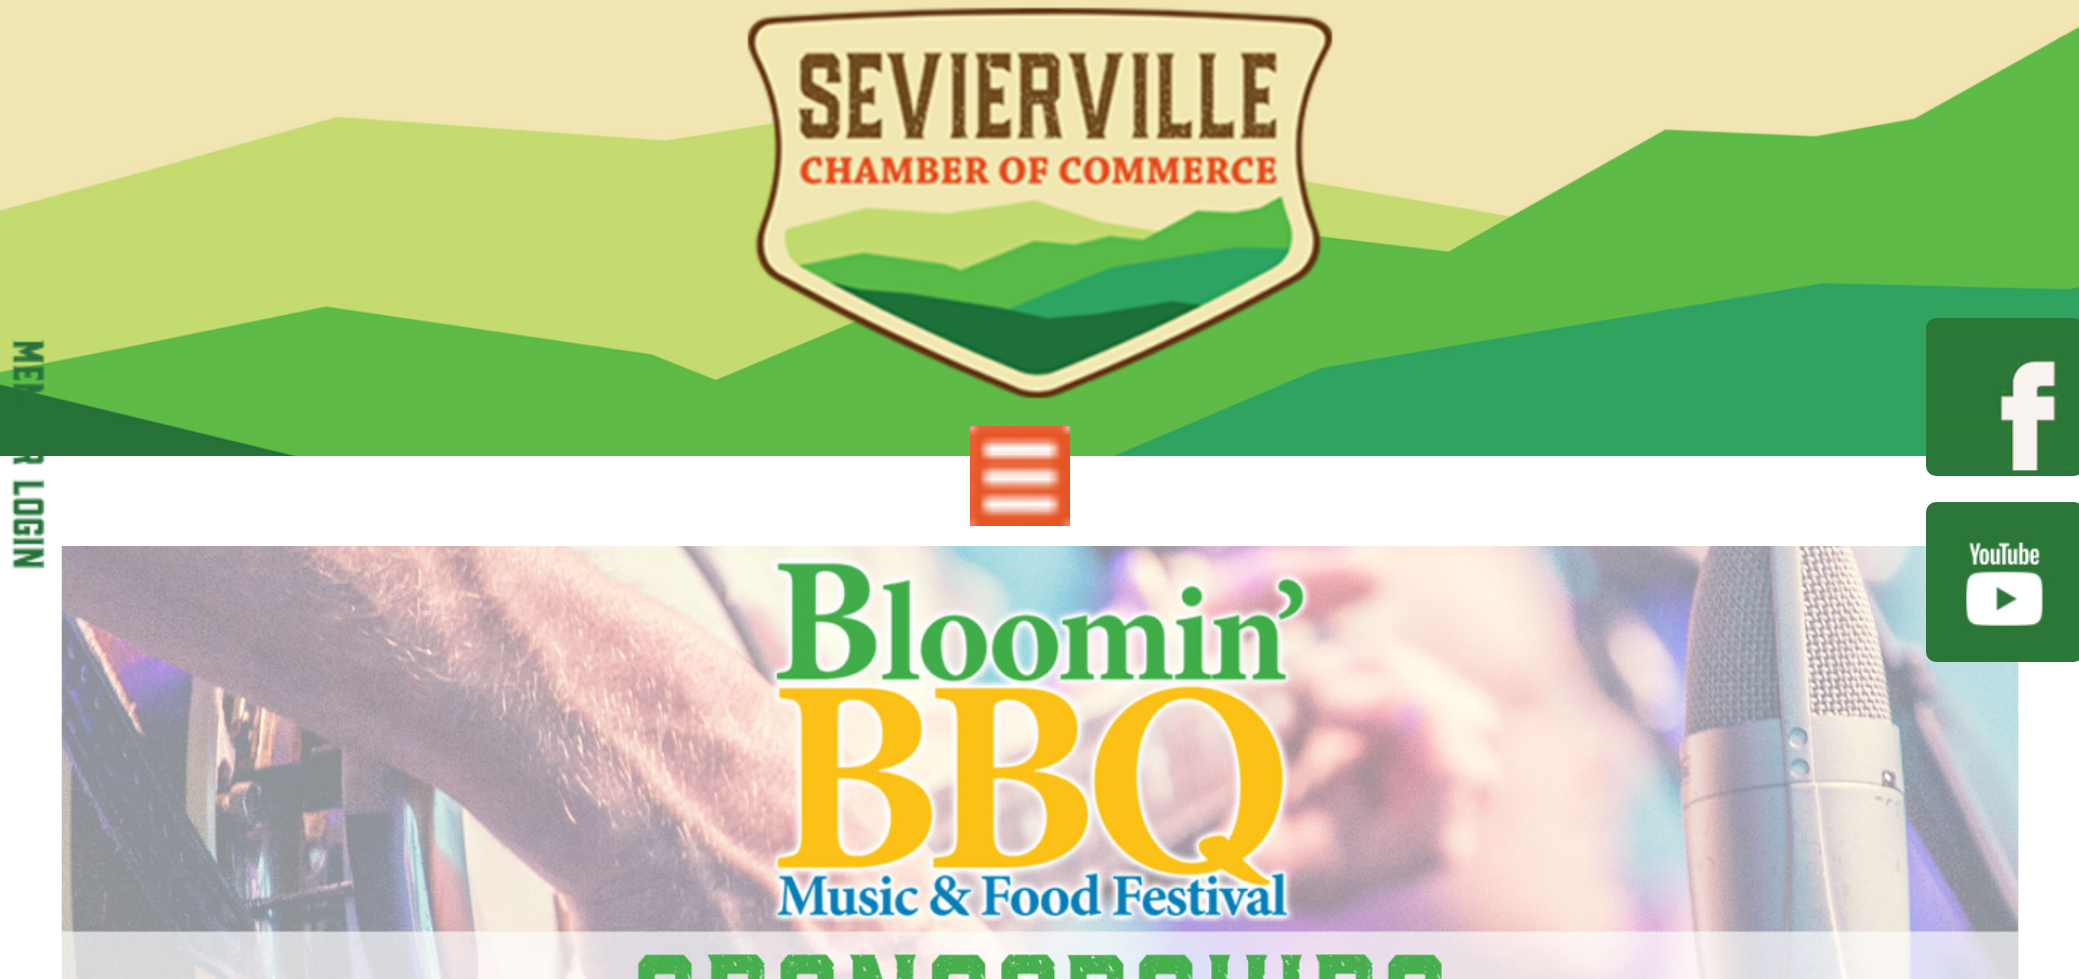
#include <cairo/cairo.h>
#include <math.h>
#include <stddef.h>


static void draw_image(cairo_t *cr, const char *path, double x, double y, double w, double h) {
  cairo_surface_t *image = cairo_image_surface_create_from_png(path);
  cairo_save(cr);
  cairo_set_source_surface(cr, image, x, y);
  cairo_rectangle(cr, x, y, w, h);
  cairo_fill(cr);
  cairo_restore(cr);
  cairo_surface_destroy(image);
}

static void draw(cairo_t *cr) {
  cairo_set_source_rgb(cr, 1, 1, 1);
  cairo_paint(cr);
  draw_image(cr, "images/1.png", 0, 0, 2079, 456);
  draw_image(cr, "images/2.png", 747, 7, 586, 392);
  draw_image(cr, "images/3.png", 11, 339, 34, 230);
  draw_image(cr, "images/4.png", 970, 426, 100, 100);
  draw_image(cr, "images/5.png", 1926, 318, 153, 158);
  draw_image(cr, "images/7.png", 60, 546, 1959, 433);
  draw_image(cr, "images/6.png", 1926, 502, 153, 160);
}

int main(void) {
  cairo_surface_t *surface = cairo_image_surface_create(CAIRO_FORMAT_RGB24, 2079, 979);
  cairo_t *cr = cairo_create(surface);
  cairo_font_options_t *options = cairo_font_options_create();
  cairo_font_options_set_hint_metrics(options, CAIRO_HINT_METRICS_OFF);
  cairo_font_options_set_hint_style(options, CAIRO_HINT_STYLE_NONE);
  cairo_set_font_options(cr, options);
  cairo_set_miter_limit(cr, 4);
  draw(cr);
  cairo_surface_write_to_png(surface, "out.png");
  cairo_font_options_destroy(options);
  cairo_destroy(cr);
  cairo_surface_destroy(surface);
  return 0;
}
